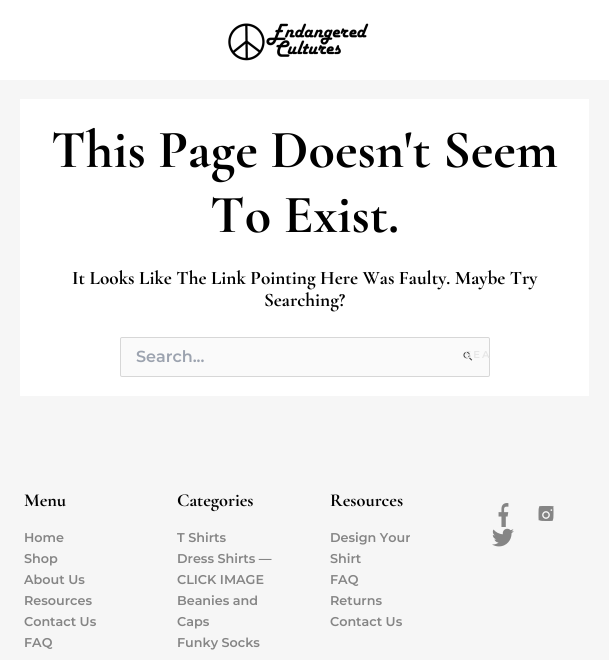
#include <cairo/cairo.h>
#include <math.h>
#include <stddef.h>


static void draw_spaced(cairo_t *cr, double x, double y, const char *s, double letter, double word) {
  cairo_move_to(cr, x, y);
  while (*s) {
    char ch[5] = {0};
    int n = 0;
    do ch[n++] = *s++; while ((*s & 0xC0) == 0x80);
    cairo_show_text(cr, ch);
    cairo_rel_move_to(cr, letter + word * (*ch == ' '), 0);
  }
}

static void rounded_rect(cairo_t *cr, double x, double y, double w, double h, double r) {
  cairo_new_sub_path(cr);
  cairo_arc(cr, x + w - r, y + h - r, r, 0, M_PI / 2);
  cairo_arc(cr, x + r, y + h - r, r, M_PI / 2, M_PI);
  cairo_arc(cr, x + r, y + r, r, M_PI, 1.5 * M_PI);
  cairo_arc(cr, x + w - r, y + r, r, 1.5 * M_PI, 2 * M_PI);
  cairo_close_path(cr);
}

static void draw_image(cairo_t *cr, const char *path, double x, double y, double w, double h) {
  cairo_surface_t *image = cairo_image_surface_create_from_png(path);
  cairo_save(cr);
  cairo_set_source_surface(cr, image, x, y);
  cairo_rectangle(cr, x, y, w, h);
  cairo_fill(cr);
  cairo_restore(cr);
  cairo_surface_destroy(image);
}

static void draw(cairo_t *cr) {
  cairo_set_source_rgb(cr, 246 / 255.0, 246 / 255.0, 246 / 255.0);
  cairo_paint(cr);
  cairo_set_source_rgb(cr, 1, 1, 1);
  cairo_rectangle(cr, 0, 0, 609, 80);
  cairo_fill(cr);
  draw_image(cr, "images/1.png", 228, 23, 141, 38);
  cairo_rectangle(cr, 20, 99, 569, 297);
  cairo_fill(cr);
  cairo_set_source_rgb(cr, 250 / 255.0, 250 / 255.0, 250 / 255.0);
  rounded_rect(cr, 120.5, 337.5, 369, 39, 1.5);
  cairo_fill_preserve(cr);
  cairo_set_source_rgb(cr, 215 / 255.0, 215 / 255.0, 215 / 255.0);
  cairo_set_line_width(cr, 1);
  cairo_stroke(cr);
  draw_image(cr, "images/2.png", 463, 351, 10, 10);
  draw_image(cr, "images/3.png", 498, 503, 11, 24);
  draw_image(cr, "images/4.png", 538, 506, 16, 15);
  draw_image(cr, "images/5.png", 492, 528, 22, 19);
  cairo_select_font_face(cr, "Cormorant Garamond Light", CAIRO_FONT_SLANT_NORMAL, CAIRO_FONT_WEIGHT_NORMAL);
  cairo_set_font_size(cr, 54);
  cairo_set_source_rgb(cr, 0, 0, 0);
  cairo_move_to(cr, 51, 167);
  cairo_show_text(cr, "This Page Doesn't Seem");
  cairo_move_to(cr, 210, 232);
  cairo_show_text(cr, "To Exist.");
  cairo_set_font_size(cr, 19.15);
  cairo_move_to(cr, 72, 284);
  cairo_show_text(cr, "It Looks Like The Link Pointing Here Was Faulty. Maybe Try");
  cairo_move_to(cr, 264, 306);
  cairo_show_text(cr, "Searching?");
  cairo_select_font_face(cr, "Montserrat Thin", CAIRO_FONT_SLANT_NORMAL, CAIRO_FONT_WEIGHT_NORMAL);
  cairo_set_font_size(cr, 16);
  cairo_set_source_rgb(cr, 156 / 255.0, 163 / 255.0, 175 / 255.0);
  cairo_move_to(cr, 136, 362);
  cairo_show_text(cr, "Search...");
  cairo_set_font_size(cr, 10);
  cairo_set_source_rgb(cr, 230 / 255.0, 230 / 255.0, 230 / 255.0);
  draw_spaced(cr, 465, 358, "SEA", 2, 0);
  cairo_select_font_face(cr, "Cormorant Garamond Light", CAIRO_FONT_SLANT_NORMAL, CAIRO_FONT_WEIGHT_NORMAL);
  cairo_set_font_size(cr, 18.25);
  cairo_set_source_rgb(cr, 0, 0, 0);
  cairo_move_to(cr, 24, 506);
  cairo_show_text(cr, "Menu");
  cairo_select_font_face(cr, "Montserrat Thin", CAIRO_FONT_SLANT_NORMAL, CAIRO_FONT_WEIGHT_NORMAL);
  cairo_set_font_size(cr, 12.75);
  cairo_set_source_rgb(cr, 133 / 255.0, 133 / 255.0, 133 / 255.0);
  cairo_move_to(cr, 24, 542);
  cairo_show_text(cr, "Home");
  cairo_move_to(cr, 24, 563);
  cairo_show_text(cr, "Shop");
  cairo_move_to(cr, 24, 584);
  cairo_show_text(cr, "About Us");
  cairo_move_to(cr, 24, 605);
  cairo_show_text(cr, "Resources");
  cairo_move_to(cr, 24, 626);
  cairo_show_text(cr, "Contact Us");
  cairo_move_to(cr, 24, 647);
  cairo_show_text(cr, "FAQ");
  cairo_select_font_face(cr, "Cormorant Garamond Light", CAIRO_FONT_SLANT_NORMAL, CAIRO_FONT_WEIGHT_NORMAL);
  cairo_set_font_size(cr, 18.25);
  cairo_set_source_rgb(cr, 0, 0, 0);
  cairo_move_to(cr, 177, 506);
  cairo_show_text(cr, "Categories");
  cairo_select_font_face(cr, "Montserrat Thin", CAIRO_FONT_SLANT_NORMAL, CAIRO_FONT_WEIGHT_NORMAL);
  cairo_set_font_size(cr, 12.75);
  cairo_set_source_rgb(cr, 133 / 255.0, 133 / 255.0, 133 / 255.0);
  cairo_move_to(cr, 177, 542);
  cairo_show_text(cr, "T Shirts");
  cairo_move_to(cr, 177, 563);
  cairo_show_text(cr, "Dress Shirts —");
  cairo_move_to(cr, 177, 584);
  cairo_show_text(cr, "CLICK IMAGE");
  cairo_move_to(cr, 177, 605);
  cairo_show_text(cr, "Beanies and");
  cairo_move_to(cr, 177, 626);
  cairo_show_text(cr, "Caps");
  cairo_move_to(cr, 177, 647);
  cairo_show_text(cr, "Funky Socks");
  cairo_select_font_face(cr, "Cormorant Garamond Light", CAIRO_FONT_SLANT_NORMAL, CAIRO_FONT_WEIGHT_NORMAL);
  cairo_set_font_size(cr, 18.25);
  cairo_set_source_rgb(cr, 0, 0, 0);
  cairo_move_to(cr, 330, 506);
  cairo_show_text(cr, "Resources");
  cairo_select_font_face(cr, "Montserrat Thin", CAIRO_FONT_SLANT_NORMAL, CAIRO_FONT_WEIGHT_NORMAL);
  cairo_set_font_size(cr, 12.75);
  cairo_set_source_rgb(cr, 133 / 255.0, 133 / 255.0, 133 / 255.0);
  cairo_move_to(cr, 330, 542);
  cairo_show_text(cr, "Design Your");
  cairo_move_to(cr, 330, 563);
  cairo_show_text(cr, "Shirt");
  cairo_move_to(cr, 330, 584);
  cairo_show_text(cr, "FAQ");
  cairo_move_to(cr, 330, 605);
  cairo_show_text(cr, "Returns");
  cairo_move_to(cr, 330, 626);
  cairo_show_text(cr, "Contact Us");
}

int main(void) {
  cairo_surface_t *surface = cairo_image_surface_create(CAIRO_FORMAT_RGB24, 609, 660);
  cairo_t *cr = cairo_create(surface);
  cairo_font_options_t *options = cairo_font_options_create();
  cairo_font_options_set_hint_metrics(options, CAIRO_HINT_METRICS_OFF);
  cairo_font_options_set_hint_style(options, CAIRO_HINT_STYLE_NONE);
  cairo_set_font_options(cr, options);
  cairo_set_miter_limit(cr, 4);
  draw(cr);
  cairo_surface_write_to_png(surface, "out.png");
  cairo_font_options_destroy(options);
  cairo_destroy(cr);
  cairo_surface_destroy(surface);
  return 0;
}
